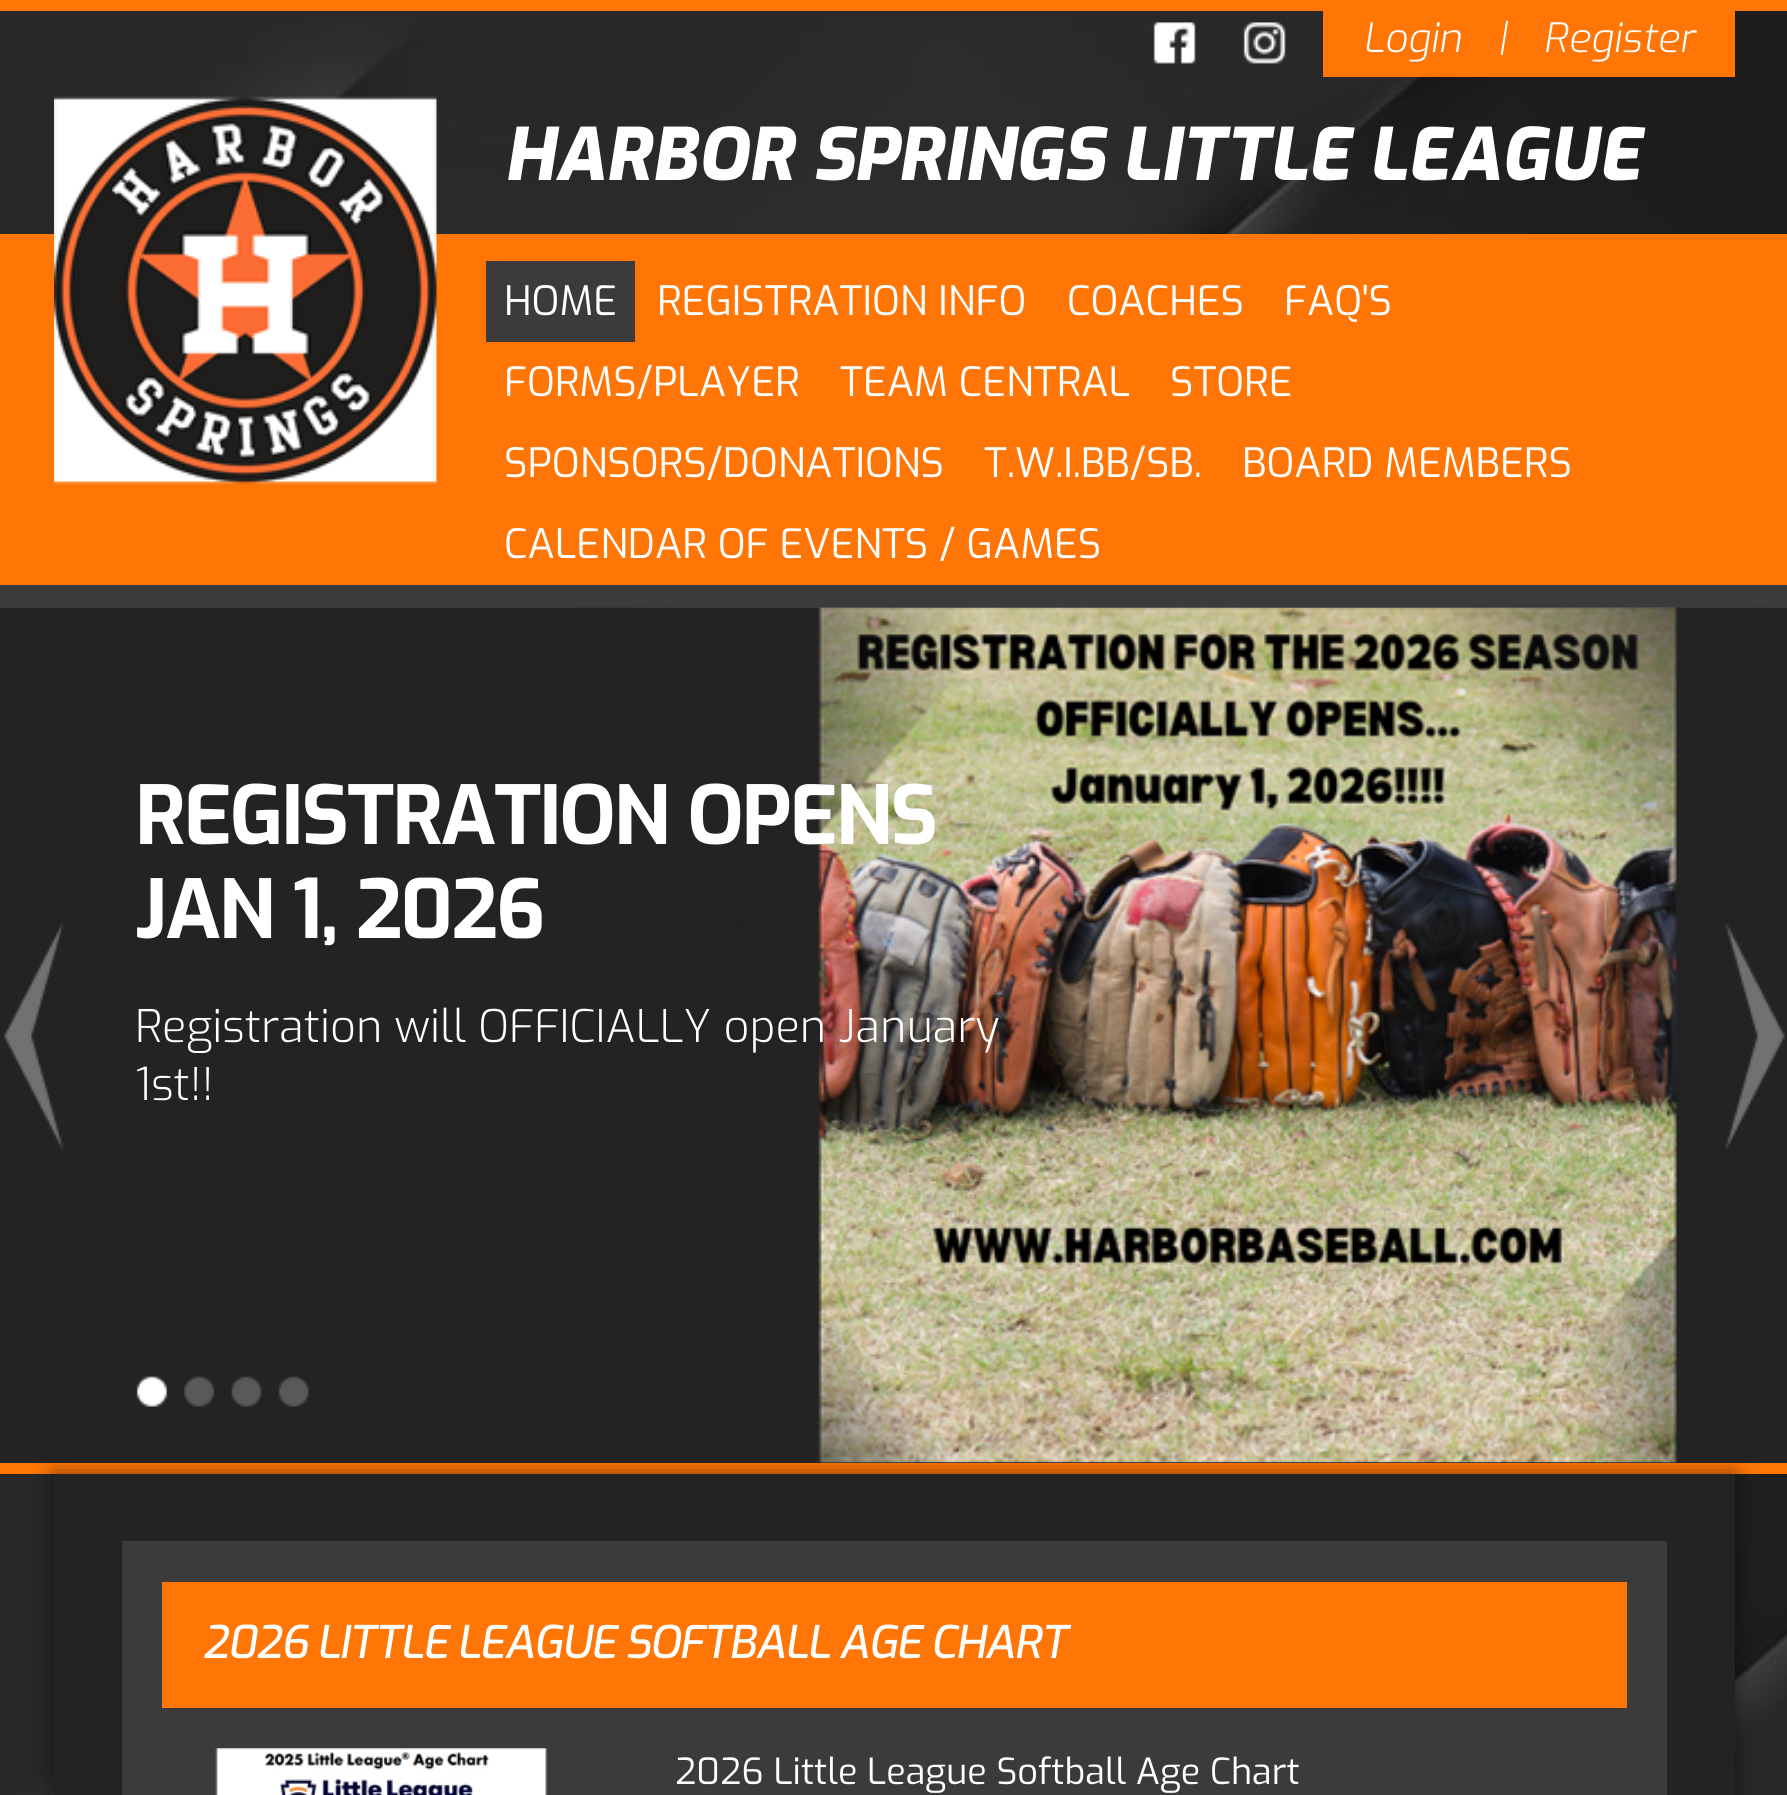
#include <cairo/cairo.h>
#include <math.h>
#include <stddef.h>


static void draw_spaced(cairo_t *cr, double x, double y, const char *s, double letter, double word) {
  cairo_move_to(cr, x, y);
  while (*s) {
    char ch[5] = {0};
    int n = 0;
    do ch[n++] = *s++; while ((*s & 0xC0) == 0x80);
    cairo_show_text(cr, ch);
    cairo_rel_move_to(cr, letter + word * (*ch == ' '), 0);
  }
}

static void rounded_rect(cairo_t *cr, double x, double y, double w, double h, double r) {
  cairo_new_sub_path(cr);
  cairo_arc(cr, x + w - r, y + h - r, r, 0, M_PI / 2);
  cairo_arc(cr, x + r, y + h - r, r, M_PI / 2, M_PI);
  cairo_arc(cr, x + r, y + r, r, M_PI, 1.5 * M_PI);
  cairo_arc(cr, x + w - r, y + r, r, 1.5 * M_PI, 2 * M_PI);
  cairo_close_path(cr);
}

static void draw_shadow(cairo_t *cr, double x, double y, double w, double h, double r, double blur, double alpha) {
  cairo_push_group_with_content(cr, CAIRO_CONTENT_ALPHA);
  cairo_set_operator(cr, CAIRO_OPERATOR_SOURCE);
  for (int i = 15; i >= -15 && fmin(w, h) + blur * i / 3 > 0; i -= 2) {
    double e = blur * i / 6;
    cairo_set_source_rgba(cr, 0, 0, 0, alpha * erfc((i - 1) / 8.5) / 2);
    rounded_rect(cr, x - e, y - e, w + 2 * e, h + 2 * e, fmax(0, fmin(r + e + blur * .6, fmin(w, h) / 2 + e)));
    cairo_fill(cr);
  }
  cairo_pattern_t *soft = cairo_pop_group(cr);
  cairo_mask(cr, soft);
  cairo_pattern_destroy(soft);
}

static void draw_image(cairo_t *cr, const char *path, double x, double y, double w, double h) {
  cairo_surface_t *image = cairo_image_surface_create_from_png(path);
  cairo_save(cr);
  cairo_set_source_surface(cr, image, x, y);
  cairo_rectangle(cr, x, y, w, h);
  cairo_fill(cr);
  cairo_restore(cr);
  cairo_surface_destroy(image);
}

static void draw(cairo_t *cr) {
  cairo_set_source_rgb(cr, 1, 1, 1);
  cairo_paint(cr);
  draw_image(cr, "images/1.png", 0, 11, 1787, 1784);
  cairo_set_source_rgb(cr, 1, 118 / 255.0, 7 / 255.0);
  cairo_rectangle(cr, 0, 0, 1787, 11);
  cairo_fill(cr);
  draw_image(cr, "images/2.png", 1153, 22, 43, 42);
  draw_image(cr, "images/3.png", 1243, 22, 43, 42);
  cairo_rectangle(cr, 1323, 11, 412, 66);
  cairo_fill(cr);
  cairo_rectangle(cr, 0, 234, 1787, 351);
  cairo_fill(cr);
  draw_image(cr, "images/4.png", 54, 96, 383, 389);
  cairo_set_source_rgb(cr, 59 / 255.0, 59 / 255.0, 59 / 255.0);
  cairo_rectangle(cr, 486, 261, 149, 81);
  cairo_fill(cr);
  cairo_rectangle(cr, 0, 585, 1787, 23);
  cairo_fill(cr);
  cairo_set_source_rgb(cr, 1, 118 / 255.0, 7 / 255.0);
  cairo_rectangle(cr, 0, 1463, 1787, 11);
  cairo_fill(cr);
  cairo_set_source_rgb(cr, 0, 0, 0);
  draw_shadow(cr, 54, 1474, 1681, 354, 0, 11, 0.5);
  cairo_set_source_rgb(cr, 35 / 255.0, 35 / 255.0, 35 / 255.0);
  cairo_rectangle(cr, 0, 608, 1787, 855);
  cairo_fill(cr);
  draw_image(cr, "images/5.png", 4, 923, 60, 227);
  draw_image(cr, "images/7.png", 818, 607, 859, 856);
  draw_image(cr, "images/6.png", 574, 607, 1213, 856);
  draw_image(cr, "images/8.png", 1725, 923, 60, 227);
  draw_image(cr, "images/9.png", 136, 1376, 32, 31);
  draw_image(cr, "images/10.png", 184, 1376, 31, 31);
  draw_image(cr, "images/11.png", 231, 1376, 31, 31);
  draw_image(cr, "images/12.png", 278, 1376, 31, 31);
  cairo_rectangle(cr, 54, 1474, 1681, 321);
  cairo_fill(cr);
  cairo_set_source_rgb(cr, 59 / 255.0, 59 / 255.0, 59 / 255.0);
  cairo_rectangle(cr, 122, 1541, 1545, 254);
  cairo_fill(cr);
  cairo_set_source_rgb(cr, 1, 118 / 255.0, 7 / 255.0);
  cairo_rectangle(cr, 162, 1582, 1465, 126);
  cairo_fill(cr);
  draw_image(cr, "images/13.png", 215, 1748, 333, 47);
  cairo_select_font_face(cr, "Exo Light", CAIRO_FONT_SLANT_ITALIC, CAIRO_FONT_WEIGHT_NORMAL);
  cairo_set_font_size(cr, 40.5);
  cairo_set_source_rgb(cr, 1, 1, 1);
  cairo_move_to(cr, 1363, 52);
  cairo_show_text(cr, "Login");
  cairo_move_to(cr, 1497, 52);
  cairo_show_text(cr, "|");
  cairo_move_to(cr, 1543, 52);
  cairo_show_text(cr, "Register");
  cairo_select_font_face(cr, "Exo ExtraBold", CAIRO_FONT_SLANT_ITALIC, CAIRO_FONT_WEIGHT_NORMAL);
  cairo_set_font_size(cr, 72);
  cairo_move_to(cr, 504, 180);
  cairo_show_text(cr, "HARBOR SPRINGS LITTLE LEAGUE");
  cairo_select_font_face(cr, "Exo", CAIRO_FONT_SLANT_NORMAL, CAIRO_FONT_WEIGHT_NORMAL);
  cairo_set_font_size(cr, 40.5);
  cairo_move_to(cr, 504, 315);
  cairo_show_text(cr, "HOME");
  cairo_move_to(cr, 657, 315);
  cairo_show_text(cr, "REGISTRATION INFO");
  cairo_move_to(cr, 1067, 315);
  cairo_show_text(cr, "COACHES");
  cairo_move_to(cr, 1284, 315);
  cairo_show_text(cr, "FAQ'S");
  cairo_move_to(cr, 504, 396);
  cairo_show_text(cr, "FORMS/PLAYER");
  cairo_move_to(cr, 840, 396);
  cairo_show_text(cr, "TEAM CENTRAL");
  cairo_move_to(cr, 1170, 396);
  cairo_show_text(cr, "STORE");
  cairo_move_to(cr, 504, 477);
  cairo_show_text(cr, "SPONSORS/DONATIONS");
  cairo_move_to(cr, 984, 477);
  cairo_show_text(cr, "T.W.I.BB/SB.");
  cairo_move_to(cr, 1242, 477);
  cairo_show_text(cr, "BOARD MEMBERS");
  cairo_move_to(cr, 504, 558);
  cairo_show_text(cr, "CALENDAR OF EVENTS / GAMES");
  cairo_select_font_face(cr, "Exo", CAIRO_FONT_SLANT_NORMAL, CAIRO_FONT_WEIGHT_BOLD);
  cairo_set_font_size(cr, 81);
  draw_spaced(cr, 135, 844, "REGISTRATION OPENS", -2.25, 0);
  draw_spaced(cr, 135, 938, "JAN 1, 2026", -2.25, 0);
  cairo_select_font_face(cr, "Exo Light", CAIRO_FONT_SLANT_NORMAL, CAIRO_FONT_WEIGHT_NORMAL);
  cairo_set_font_size(cr, 45);
  cairo_move_to(cr, 135, 1042);
  cairo_show_text(cr, "Registration will OFFICIALLY open January");
  cairo_move_to(cr, 135, 1100);
  cairo_show_text(cr, "1st!!");
  cairo_select_font_face(cr, "Exo Medium", CAIRO_FONT_SLANT_ITALIC, CAIRO_FONT_WEIGHT_NORMAL);
  draw_spaced(cr, 202, 1658, "2026 LITTLE LEAGUE SOFTBALL AGE CHART", -1.35, 0);
  cairo_select_font_face(cr, "Exo", CAIRO_FONT_SLANT_NORMAL, CAIRO_FONT_WEIGHT_NORMAL);
  cairo_set_font_size(cr, 36);
  cairo_move_to(cr, 675, 1784);
  cairo_show_text(cr, "2026 Little League Softball Age Chart");
}

int main(void) {
  cairo_surface_t *surface = cairo_image_surface_create(CAIRO_FORMAT_RGB24, 1787, 1795);
  cairo_t *cr = cairo_create(surface);
  cairo_font_options_t *options = cairo_font_options_create();
  cairo_font_options_set_hint_metrics(options, CAIRO_HINT_METRICS_OFF);
  cairo_font_options_set_hint_style(options, CAIRO_HINT_STYLE_NONE);
  cairo_set_font_options(cr, options);
  cairo_set_miter_limit(cr, 4);
  draw(cr);
  cairo_surface_write_to_png(surface, "out.png");
  cairo_font_options_destroy(options);
  cairo_destroy(cr);
  cairo_surface_destroy(surface);
  return 0;
}
